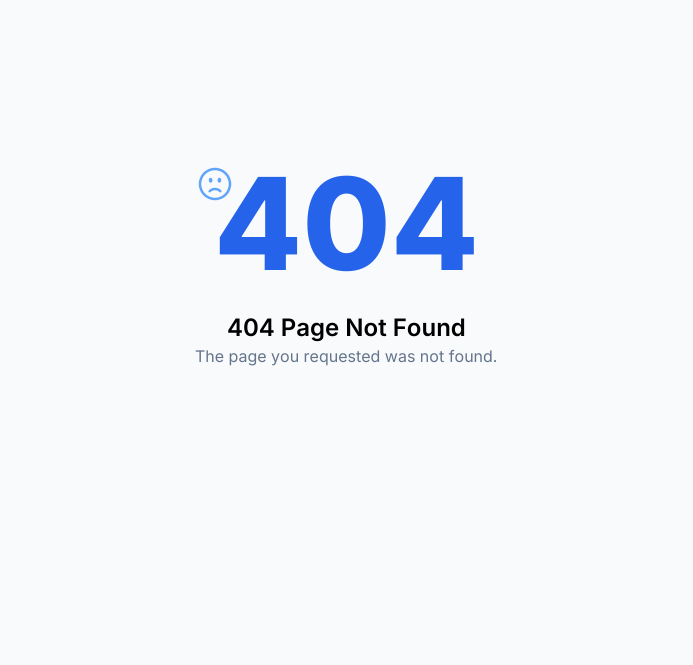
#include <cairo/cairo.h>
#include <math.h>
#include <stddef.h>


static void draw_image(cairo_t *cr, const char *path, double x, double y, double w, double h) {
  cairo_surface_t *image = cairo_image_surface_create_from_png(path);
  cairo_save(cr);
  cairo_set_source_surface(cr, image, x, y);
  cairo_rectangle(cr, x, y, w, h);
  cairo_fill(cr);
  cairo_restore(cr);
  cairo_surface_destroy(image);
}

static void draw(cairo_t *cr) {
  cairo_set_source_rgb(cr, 248 / 255.0, 250 / 255.0, 252 / 255.0);
  cairo_paint(cr);
  cairo_select_font_face(cr, "Inter ExtraBold", CAIRO_FONT_SLANT_NORMAL, CAIRO_FONT_WEIGHT_NORMAL);
  cairo_set_font_size(cr, 128);
  cairo_set_source_rgb(cr, 37 / 255.0, 99 / 255.0, 235 / 255.0);
  cairo_move_to(cr, 214, 270);
  cairo_show_text(cr, "404");
  draw_image(cr, "images/1.png", 198, 167, 34, 34);
  cairo_select_font_face(cr, "Inter SemiBold", CAIRO_FONT_SLANT_NORMAL, CAIRO_FONT_WEIGHT_NORMAL);
  cairo_set_font_size(cr, 24);
  cairo_set_source_rgb(cr, 0, 0, 0);
  cairo_move_to(cr, 227, 336);
  cairo_show_text(cr, "404 Page Not Found");
  cairo_select_font_face(cr, "Inter", CAIRO_FONT_SLANT_NORMAL, CAIRO_FONT_WEIGHT_NORMAL);
  cairo_set_font_size(cr, 16);
  cairo_set_source_rgb(cr, 100 / 255.0, 116 / 255.0, 139 / 255.0);
  cairo_move_to(cr, 195, 362);
  cairo_show_text(cr, "The page you requested was not found.");
}

int main(void) {
  cairo_surface_t *surface = cairo_image_surface_create(CAIRO_FORMAT_RGB24, 693, 665);
  cairo_t *cr = cairo_create(surface);
  cairo_font_options_t *options = cairo_font_options_create();
  cairo_font_options_set_hint_metrics(options, CAIRO_HINT_METRICS_OFF);
  cairo_font_options_set_hint_style(options, CAIRO_HINT_STYLE_NONE);
  cairo_set_font_options(cr, options);
  cairo_set_miter_limit(cr, 4);
  draw(cr);
  cairo_surface_write_to_png(surface, "out.png");
  cairo_font_options_destroy(options);
  cairo_destroy(cr);
  cairo_surface_destroy(surface);
  return 0;
}
